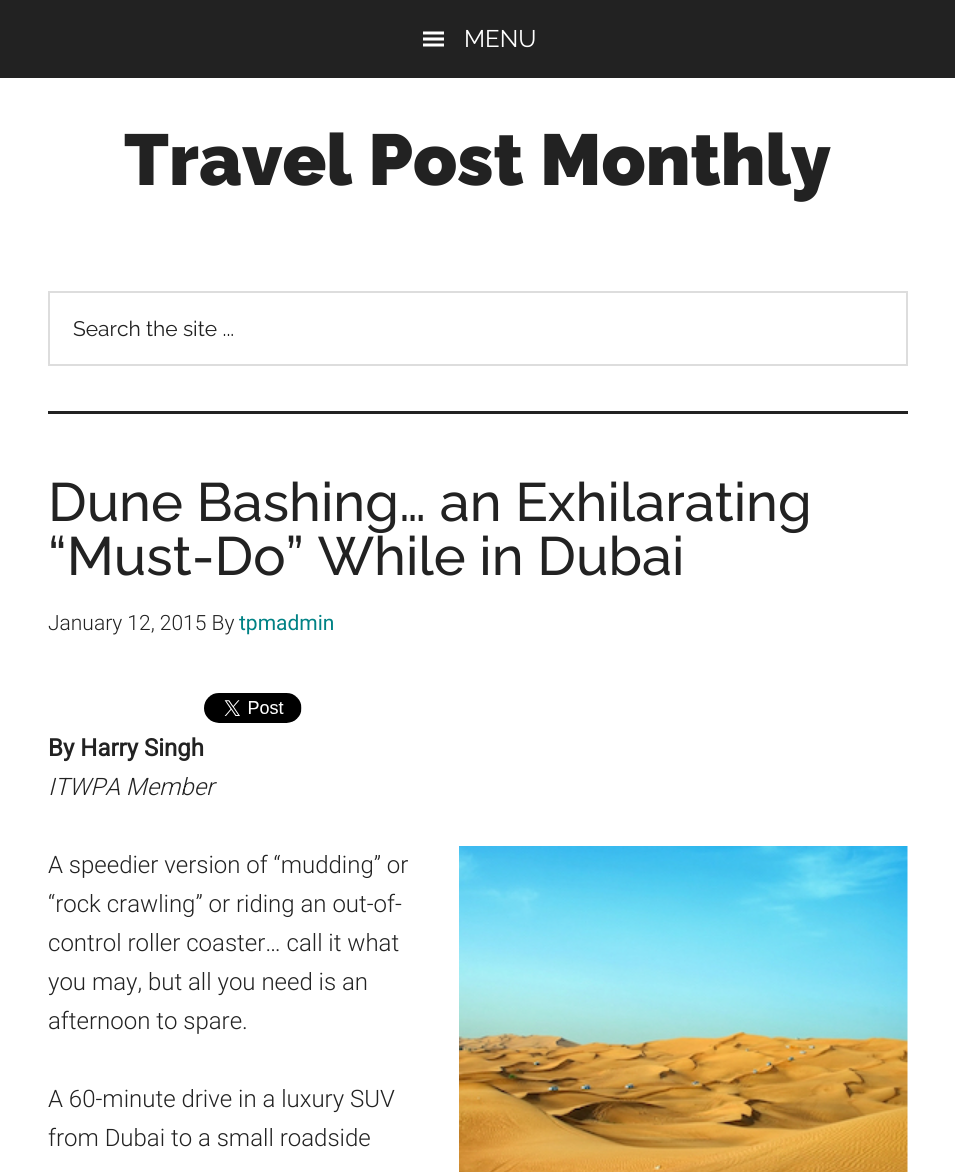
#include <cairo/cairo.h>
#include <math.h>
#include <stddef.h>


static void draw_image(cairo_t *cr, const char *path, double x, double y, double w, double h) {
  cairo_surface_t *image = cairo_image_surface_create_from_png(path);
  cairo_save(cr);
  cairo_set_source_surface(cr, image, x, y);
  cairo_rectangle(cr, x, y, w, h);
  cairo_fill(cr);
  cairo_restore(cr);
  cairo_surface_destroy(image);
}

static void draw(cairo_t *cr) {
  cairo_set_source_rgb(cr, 1, 1, 1);
  cairo_paint(cr);
  cairo_set_source_rgb(cr, 34 / 255.0, 34 / 255.0, 34 / 255.0);
  cairo_rectangle(cr, 0, 0, 955, 78);
  cairo_fill(cr);
  draw_image(cr, "images/1.png", 423, 31, 21, 16);
  cairo_rectangle(cr, 48, 411, 860, 3);
  cairo_fill(cr);
  cairo_rectangle(cr, 49, 292, 858, 73);
  cairo_set_source_rgb(cr, 221 / 255.0, 221 / 255.0, 221 / 255.0);
  cairo_stroke(cr);
  draw_image(cr, "images/2.png", 204, 693, 98, 30);
  draw_image(cr, "images/3.png", 459, 846, 449, 326);
  cairo_select_font_face(cr, "Raleway", CAIRO_FONT_SLANT_NORMAL, CAIRO_FONT_WEIGHT_NORMAL);
  cairo_set_font_size(cr, 24);
  cairo_set_source_rgb(cr, 1, 1, 1);
  cairo_move_to(cr, 464, 47);
  cairo_show_text(cr, "MENU");
  cairo_select_font_face(cr, "Raleway Black", CAIRO_FONT_SLANT_NORMAL, CAIRO_FONT_WEIGHT_NORMAL);
  cairo_set_font_size(cr, 72);
  cairo_set_source_rgb(cr, 34 / 255.0, 34 / 255.0, 34 / 255.0);
  cairo_move_to(cr, 124, 185);
  cairo_show_text(cr, "Travel Post Monthly");
  cairo_select_font_face(cr, "Raleway", CAIRO_FONT_SLANT_NORMAL, CAIRO_FONT_WEIGHT_NORMAL);
  cairo_set_font_size(cr, 21);
  cairo_move_to(cr, 73, 336);
  cairo_show_text(cr, "Search the site ...");
  cairo_select_font_face(cr, "Raleway Medium", CAIRO_FONT_SLANT_NORMAL, CAIRO_FONT_WEIGHT_NORMAL);
  cairo_set_font_size(cr, 54);
  cairo_move_to(cr, 48, 521);
  cairo_show_text(cr, "Dune Bashing… an Exhilarating");
  cairo_move_to(cr, 48, 575);
  cairo_show_text(cr, "“Must-Do” While in Dubai");
  cairo_select_font_face(cr, "Roboto Light", CAIRO_FONT_SLANT_NORMAL, CAIRO_FONT_WEIGHT_NORMAL);
  cairo_set_font_size(cr, 21);
  cairo_move_to(cr, 48, 630);
  cairo_show_text(cr, "January 12, 2015 By");
  cairo_select_font_face(cr, "Roboto", CAIRO_FONT_SLANT_NORMAL, CAIRO_FONT_WEIGHT_NORMAL);
  cairo_set_source_rgb(cr, 0, 130 / 255.0, 133 / 255.0);
  cairo_move_to(cr, 239, 630);
  cairo_show_text(cr, "tpmadmin");
  cairo_select_font_face(cr, "Roboto", CAIRO_FONT_SLANT_NORMAL, CAIRO_FONT_WEIGHT_BOLD);
  cairo_set_font_size(cr, 24);
  cairo_set_source_rgb(cr, 34 / 255.0, 34 / 255.0, 34 / 255.0);
  cairo_move_to(cr, 48, 756);
  cairo_show_text(cr, "By Harry Singh");
  cairo_select_font_face(cr, "Roboto Light", CAIRO_FONT_SLANT_ITALIC, CAIRO_FONT_WEIGHT_NORMAL);
  cairo_move_to(cr, 48, 795);
  cairo_show_text(cr, "ITWPA Member");
  cairo_select_font_face(cr, "Roboto Light", CAIRO_FONT_SLANT_NORMAL, CAIRO_FONT_WEIGHT_NORMAL);
  cairo_move_to(cr, 48, 873);
  cairo_show_text(cr, "A speedier version of “mudding” or");
  cairo_move_to(cr, 48, 912);
  cairo_show_text(cr, "“rock crawling” or riding an out-of-");
  cairo_move_to(cr, 48, 951);
  cairo_show_text(cr, "control roller coaster… call it what");
  cairo_move_to(cr, 48, 990);
  cairo_show_text(cr, "you may, but all you need is an");
  cairo_move_to(cr, 48, 1029);
  cairo_show_text(cr, "afternoon to spare.");
  cairo_move_to(cr, 48, 1107);
  cairo_show_text(cr, "A 60-minute drive in a luxury SUV");
  cairo_move_to(cr, 48, 1146);
  cairo_show_text(cr, "from Dubai to a small roadside");
}

int main(void) {
  cairo_surface_t *surface = cairo_image_surface_create(CAIRO_FORMAT_RGB24, 955, 1172);
  cairo_t *cr = cairo_create(surface);
  cairo_font_options_t *options = cairo_font_options_create();
  cairo_font_options_set_hint_metrics(options, CAIRO_HINT_METRICS_OFF);
  cairo_font_options_set_hint_style(options, CAIRO_HINT_STYLE_NONE);
  cairo_set_font_options(cr, options);
  cairo_set_miter_limit(cr, 4);
  draw(cr);
  cairo_surface_write_to_png(surface, "out.png");
  cairo_font_options_destroy(options);
  cairo_destroy(cr);
  cairo_surface_destroy(surface);
  return 0;
}
